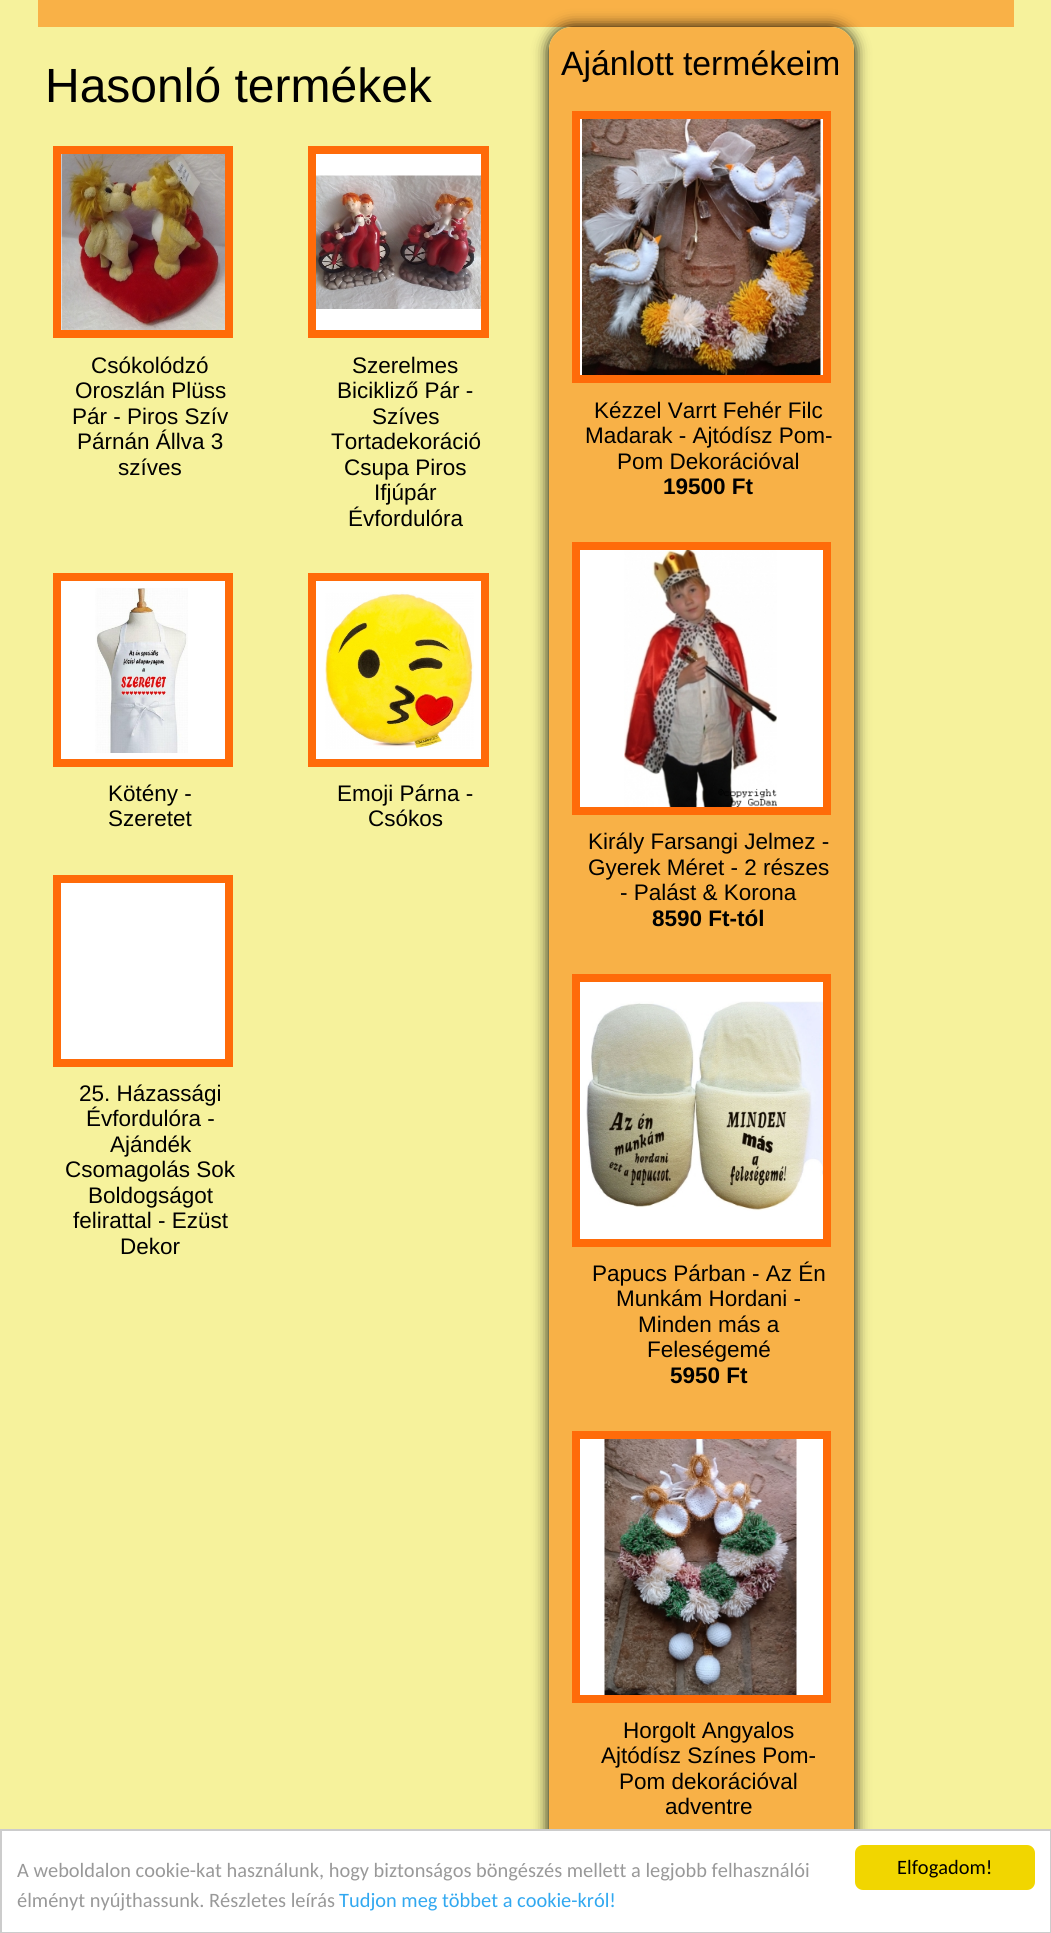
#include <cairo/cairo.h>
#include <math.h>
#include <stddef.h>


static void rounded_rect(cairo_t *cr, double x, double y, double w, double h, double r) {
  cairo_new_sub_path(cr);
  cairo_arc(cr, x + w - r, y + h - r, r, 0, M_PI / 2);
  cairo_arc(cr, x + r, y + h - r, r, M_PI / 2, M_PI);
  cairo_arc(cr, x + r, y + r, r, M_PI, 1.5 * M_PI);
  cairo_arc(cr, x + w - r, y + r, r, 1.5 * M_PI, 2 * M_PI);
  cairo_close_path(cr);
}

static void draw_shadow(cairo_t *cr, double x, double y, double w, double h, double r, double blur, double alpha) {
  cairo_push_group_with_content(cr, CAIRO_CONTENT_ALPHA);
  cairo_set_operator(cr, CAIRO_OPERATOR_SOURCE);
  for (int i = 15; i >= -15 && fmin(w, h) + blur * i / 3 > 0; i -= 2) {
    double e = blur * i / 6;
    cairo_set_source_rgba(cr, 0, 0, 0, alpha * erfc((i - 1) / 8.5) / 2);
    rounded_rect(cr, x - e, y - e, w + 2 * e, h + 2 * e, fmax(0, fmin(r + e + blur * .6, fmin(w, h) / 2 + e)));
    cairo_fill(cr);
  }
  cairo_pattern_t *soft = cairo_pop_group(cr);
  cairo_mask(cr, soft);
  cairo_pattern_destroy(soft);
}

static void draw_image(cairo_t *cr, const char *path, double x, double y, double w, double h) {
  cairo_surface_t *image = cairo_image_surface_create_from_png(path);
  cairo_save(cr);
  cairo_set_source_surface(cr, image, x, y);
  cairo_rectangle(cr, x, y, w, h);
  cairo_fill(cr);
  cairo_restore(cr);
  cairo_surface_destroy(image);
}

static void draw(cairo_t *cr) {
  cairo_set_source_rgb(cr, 246 / 255.0, 242 / 255.0, 156 / 255.0);
  cairo_paint(cr);
  cairo_set_source_rgb(cr, 249 / 255.0, 177 / 255.0, 71 / 255.0);
  cairo_rectangle(cr, 38, 0, 976, 27);
  cairo_fill(cr);
  cairo_set_source_rgb(cr, 1, 1, 1);
  cairo_rectangle(cr, 61, 154, 1, 176);
  cairo_fill(cr);
  draw_image(cr, "images/1.png", 61, 154, 164, 176);
  cairo_rectangle(cr, 57, 150, 172, 184);
  cairo_set_source_rgb(cr, 1, 107 / 255.0, 9 / 255.0);
  cairo_set_line_width(cr, 8);
  cairo_stroke(cr);
  cairo_set_source_rgb(cr, 1, 1, 1);
  cairo_rectangle(cr, 316, 154, 165, 176);
  cairo_fill(cr);
  draw_image(cr, "images/2.png", 316, 175, 165, 134);
  cairo_rectangle(cr, 312, 150, 173, 184);
  cairo_set_source_rgb(cr, 1, 107 / 255.0, 9 / 255.0);
  cairo_stroke(cr);
  cairo_set_source_rgb(cr, 1, 1, 1);
  cairo_rectangle(cr, 61, 581, 164, 178);
  cairo_fill(cr);
  draw_image(cr, "images/3.png", 95, 588, 93, 165);
  cairo_rectangle(cr, 57, 577, 172, 186);
  cairo_set_source_rgb(cr, 1, 107 / 255.0, 9 / 255.0);
  cairo_stroke(cr);
  cairo_set_source_rgb(cr, 1, 1, 1);
  cairo_rectangle(cr, 316, 581, 165, 178);
  cairo_fill(cr);
  draw_image(cr, "images/4.png", 325, 592, 149, 157);
  cairo_rectangle(cr, 312, 577, 173, 186);
  cairo_set_source_rgb(cr, 1, 107 / 255.0, 9 / 255.0);
  cairo_stroke(cr);
  cairo_set_source_rgb(cr, 1, 1, 1);
  cairo_rectangle(cr, 57, 879, 172, 184);
  cairo_fill_preserve(cr);
  cairo_set_source_rgb(cr, 1, 107 / 255.0, 9 / 255.0);
  cairo_stroke(cr);
  cairo_save(cr);
  cairo_set_fill_rule(cr, CAIRO_FILL_RULE_EVEN_ODD);
  cairo_new_path(cr);
  cairo_move_to(cr, 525, 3);
  cairo_line_to(cr, 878, 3);
  cairo_line_to(cr, 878, 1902);
  cairo_line_to(cr, 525, 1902);
  cairo_close_path(cr);
  cairo_move_to(cr, 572, 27);
  cairo_line_to(cr, 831, 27);
  cairo_curve_to(cr, 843.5, 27, 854, 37.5, 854, 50);
  cairo_line_to(cr, 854, 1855);
  cairo_curve_to(cr, 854, 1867.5, 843.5, 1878, 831, 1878);
  cairo_line_to(cr, 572, 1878);
  cairo_curve_to(cr, 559.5, 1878, 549, 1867.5, 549, 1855);
  cairo_line_to(cr, 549, 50);
  cairo_curve_to(cr, 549, 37.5, 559.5, 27, 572, 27);
  cairo_close_path(cr);
  cairo_clip(cr);
  cairo_set_source_rgb(cr, 0, 0, 0);
  draw_shadow(cr, 549, 27, 305, 1851, 23, 7.5, 1);
  cairo_restore(cr);
  cairo_set_source_rgba(cr, 249 / 255.0, 170 / 255.0, 62 / 255.0, 0.9);
  rounded_rect(cr, 549, 27, 305, 1851, 23);
  cairo_fill(cr);
  cairo_set_source_rgb(cr, 1, 1, 1);
  cairo_rectangle(cr, 580, 119, 243, 256);
  cairo_fill(cr);
  draw_image(cr, "images/5.png", 582, 119, 239, 256);
  cairo_rectangle(cr, 576, 115, 251, 264);
  cairo_set_source_rgb(cr, 1, 107 / 255.0, 9 / 255.0);
  cairo_stroke(cr);
  cairo_set_source_rgb(cr, 1, 1, 1);
  cairo_rectangle(cr, 580, 550, 243, 257);
  cairo_fill(cr);
  draw_image(cr, "images/6.png", 624, 550, 153, 257);
  cairo_rectangle(cr, 576, 546, 251, 265);
  cairo_set_source_rgb(cr, 1, 107 / 255.0, 9 / 255.0);
  cairo_stroke(cr);
  cairo_set_source_rgb(cr, 1, 1, 1);
  cairo_rectangle(cr, 580, 982, 243, 257);
  cairo_fill(cr);
  draw_image(cr, "images/7.png", 586, 1001, 237, 210);
  cairo_rectangle(cr, 576, 978, 251, 265);
  cairo_set_source_rgb(cr, 1, 107 / 255.0, 9 / 255.0);
  cairo_stroke(cr);
  cairo_set_source_rgb(cr, 1, 1, 1);
  cairo_rectangle(cr, 580, 1439, 243, 256);
  cairo_fill(cr);
  draw_image(cr, "images/8.png", 604, 1439, 193, 256);
  cairo_rectangle(cr, 576, 1435, 251, 264);
  cairo_set_source_rgb(cr, 1, 107 / 255.0, 9 / 255.0);
  cairo_stroke(cr);
  cairo_set_source_rgb(cr, 1, 1, 1);
  cairo_rectangle(cr, 1, 1830, 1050, 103);
  cairo_fill_preserve(cr);
  cairo_set_source_rgb(cr, 204 / 255.0, 204 / 255.0, 204 / 255.0);
  cairo_set_line_width(cr, 2);
  cairo_stroke(cr);
  cairo_set_source_rgb(cr, 241 / 255.0, 214 / 255.0, 0);
  rounded_rect(cr, 855, 1845, 180, 45, 8);
  cairo_fill(cr);
  cairo_select_font_face(cr, "Liberation Sans", CAIRO_FONT_SLANT_NORMAL, CAIRO_FONT_WEIGHT_NORMAL);
  cairo_set_font_size(cr, 48);
  cairo_set_source_rgb(cr, 0, 0, 0);
  cairo_move_to(cr, 45, 102);
  cairo_show_text(cr, "Hasonló termékek");
  cairo_set_font_size(cr, 22.5);
  cairo_move_to(cr, 91, 373);
  cairo_show_text(cr, "Csókolódzó");
  cairo_move_to(cr, 75, 398);
  cairo_show_text(cr, "Oroszlán Plüss");
  cairo_move_to(cr, 72, 424);
  cairo_show_text(cr, "Pár - Piros Szív");
  cairo_move_to(cr, 77, 449);
  cairo_show_text(cr, "Párnán Állva 3");
  cairo_move_to(cr, 118, 475);
  cairo_show_text(cr, "szíves");
  cairo_move_to(cr, 352, 373);
  cairo_show_text(cr, "Szerelmes");
  cairo_move_to(cr, 337, 398);
  cairo_show_text(cr, "Bicikliző Pár -");
  cairo_move_to(cr, 372, 424);
  cairo_show_text(cr, "Szíves");
  cairo_move_to(cr, 331, 449);
  cairo_show_text(cr, "Tortadekoráció");
  cairo_move_to(cr, 344, 475);
  cairo_show_text(cr, "Csupa Piros");
  cairo_move_to(cr, 374, 500);
  cairo_show_text(cr, "Ifjúpár");
  cairo_move_to(cr, 348, 526);
  cairo_show_text(cr, "Évfordulóra");
  cairo_move_to(cr, 108, 801);
  cairo_show_text(cr, "Kötény -");
  cairo_move_to(cr, 108, 826);
  cairo_show_text(cr, "Szeretet");
  cairo_move_to(cr, 337, 801);
  cairo_show_text(cr, "Emoji Párna -");
  cairo_move_to(cr, 368, 826);
  cairo_show_text(cr, "Csókos");
  cairo_move_to(cr, 79, 1101);
  cairo_show_text(cr, "25. Házassági");
  cairo_move_to(cr, 86, 1126);
  cairo_show_text(cr, "Évfordulóra -");
  cairo_move_to(cr, 110, 1152);
  cairo_show_text(cr, "Ajándék");
  cairo_move_to(cr, 65, 1177);
  cairo_show_text(cr, "Csomagolás Sok");
  cairo_move_to(cr, 88, 1203);
  cairo_show_text(cr, "Boldogságot");
  cairo_move_to(cr, 73, 1228);
  cairo_show_text(cr, "felirattal - Ezüst");
  cairo_move_to(cr, 120, 1254);
  cairo_show_text(cr, "Dekor");
  cairo_set_font_size(cr, 33.75);
  cairo_move_to(cr, 561, 75);
  cairo_show_text(cr, "Ajánlott termékeim");
  cairo_set_font_size(cr, 22.5);
  cairo_move_to(cr, 594, 418);
  cairo_show_text(cr, "Kézzel Varrt Fehér Filc");
  cairo_move_to(cr, 585, 443);
  cairo_show_text(cr, "Madarak - Ajtódísz Pom-");
  cairo_move_to(cr, 617, 469);
  cairo_show_text(cr, "Pom Dekorációval");
  cairo_select_font_face(cr, "Liberation Sans", CAIRO_FONT_SLANT_NORMAL, CAIRO_FONT_WEIGHT_BOLD);
  cairo_move_to(cr, 663, 494);
  cairo_show_text(cr, "19500 Ft");
  cairo_select_font_face(cr, "Liberation Sans", CAIRO_FONT_SLANT_NORMAL, CAIRO_FONT_WEIGHT_NORMAL);
  cairo_move_to(cr, 588, 849);
  cairo_show_text(cr, "Király Farsangi Jelmez -");
  cairo_move_to(cr, 588, 875);
  cairo_show_text(cr, "Gyerek Méret - 2 részes");
  cairo_move_to(cr, 620, 900);
  cairo_show_text(cr, "- Palást & Korona");
  cairo_select_font_face(cr, "Liberation Sans", CAIRO_FONT_SLANT_NORMAL, CAIRO_FONT_WEIGHT_BOLD);
  cairo_move_to(cr, 652, 926);
  cairo_show_text(cr, "8590 Ft-tól");
  cairo_select_font_face(cr, "Liberation Sans", CAIRO_FONT_SLANT_NORMAL, CAIRO_FONT_WEIGHT_NORMAL);
  cairo_move_to(cr, 592, 1281);
  cairo_show_text(cr, "Papucs Párban - Az Én");
  cairo_move_to(cr, 616, 1306);
  cairo_show_text(cr, "Munkám Hordani -");
  cairo_move_to(cr, 638, 1332);
  cairo_show_text(cr, "Minden más a");
  cairo_move_to(cr, 647, 1357);
  cairo_show_text(cr, "Feleségemé");
  cairo_select_font_face(cr, "Liberation Sans", CAIRO_FONT_SLANT_NORMAL, CAIRO_FONT_WEIGHT_BOLD);
  cairo_move_to(cr, 670, 1383);
  cairo_show_text(cr, "5950 Ft");
  cairo_select_font_face(cr, "Liberation Sans", CAIRO_FONT_SLANT_NORMAL, CAIRO_FONT_WEIGHT_NORMAL);
  cairo_move_to(cr, 623, 1738);
  cairo_show_text(cr, "Horgolt Angyalos");
  cairo_move_to(cr, 601, 1763);
  cairo_show_text(cr, "Ajtódísz Színes Pom-");
  cairo_move_to(cr, 619, 1789);
  cairo_show_text(cr, "Pom dekorációval");
  cairo_move_to(cr, 665, 1814);
  cairo_show_text(cr, "adventre");
  cairo_select_font_face(cr, "Carlito", CAIRO_FONT_SLANT_NORMAL, CAIRO_FONT_WEIGHT_NORMAL);
  cairo_set_font_size(cr, 20.4);
  cairo_set_source_rgb(cr, 153 / 255.0, 153 / 255.0, 153 / 255.0);
  cairo_move_to(cr, 17, 1877);
  cairo_show_text(cr, "A weboldalon cookie-kat használunk, hogy biztonságos böngészés mellett a legjobb felhasználói");
  cairo_move_to(cr, 17, 1907);
  cairo_show_text(cr, "élményt nyújthassunk. Részletes leírás");
  cairo_set_source_rgb(cr, 49 / 255.0, 168 / 255.0, 240 / 255.0);
  cairo_move_to(cr, 339, 1907);
  cairo_show_text(cr, "Tudjon meg többet a cookie-król!");
  cairo_set_source_rgb(cr, 0, 0, 0);
  cairo_move_to(cr, 897, 1874);
  cairo_show_text(cr, "Elfogadom!");
}

int main(void) {
  cairo_surface_t *surface = cairo_image_surface_create(CAIRO_FORMAT_RGB24, 1051, 1933);
  cairo_t *cr = cairo_create(surface);
  cairo_font_options_t *options = cairo_font_options_create();
  cairo_font_options_set_hint_metrics(options, CAIRO_HINT_METRICS_OFF);
  cairo_font_options_set_hint_style(options, CAIRO_HINT_STYLE_NONE);
  cairo_set_font_options(cr, options);
  cairo_set_miter_limit(cr, 4);
  draw(cr);
  cairo_surface_write_to_png(surface, "out.png");
  cairo_font_options_destroy(options);
  cairo_destroy(cr);
  cairo_surface_destroy(surface);
  return 0;
}
